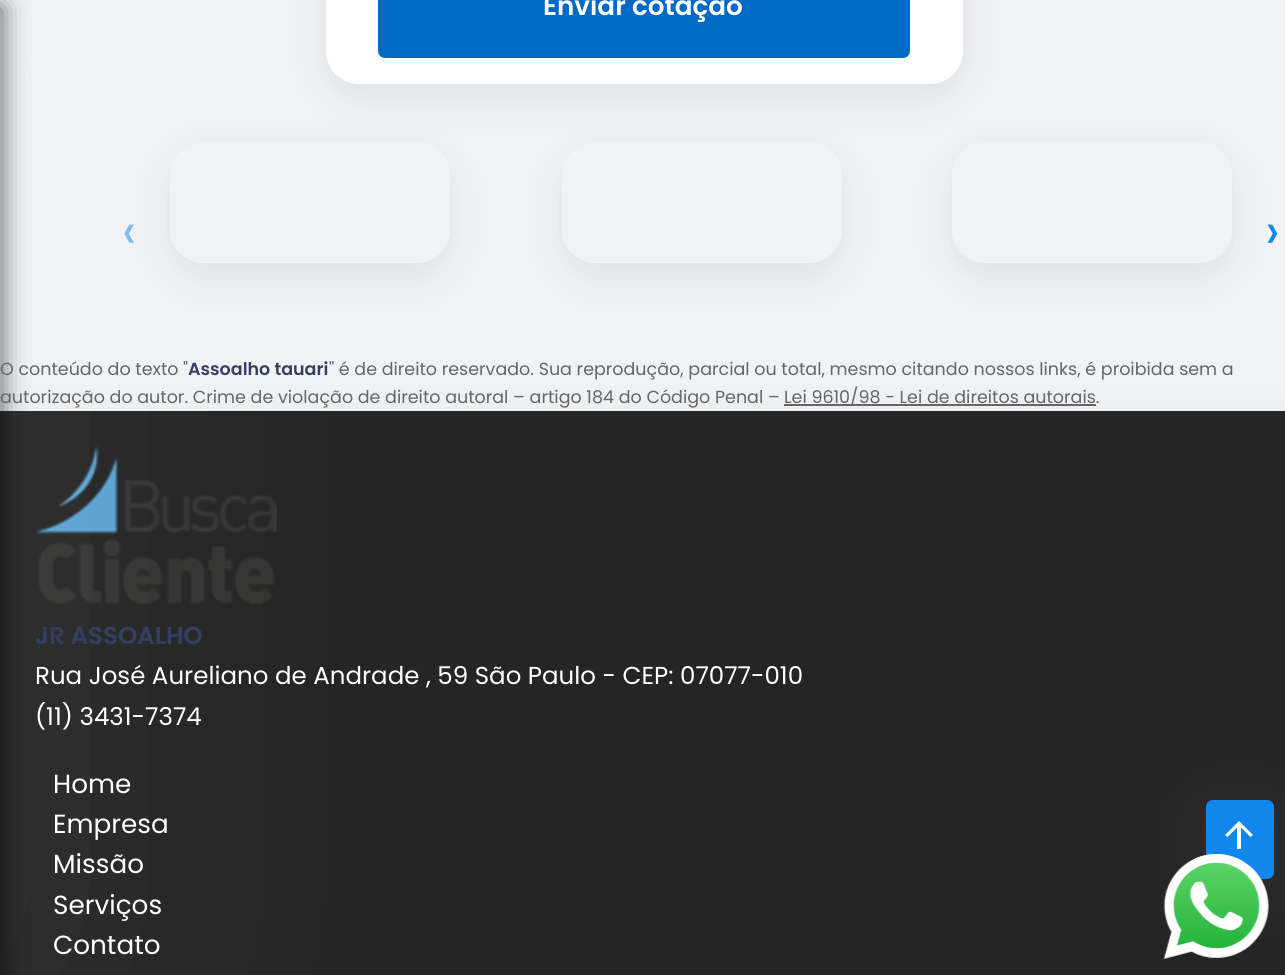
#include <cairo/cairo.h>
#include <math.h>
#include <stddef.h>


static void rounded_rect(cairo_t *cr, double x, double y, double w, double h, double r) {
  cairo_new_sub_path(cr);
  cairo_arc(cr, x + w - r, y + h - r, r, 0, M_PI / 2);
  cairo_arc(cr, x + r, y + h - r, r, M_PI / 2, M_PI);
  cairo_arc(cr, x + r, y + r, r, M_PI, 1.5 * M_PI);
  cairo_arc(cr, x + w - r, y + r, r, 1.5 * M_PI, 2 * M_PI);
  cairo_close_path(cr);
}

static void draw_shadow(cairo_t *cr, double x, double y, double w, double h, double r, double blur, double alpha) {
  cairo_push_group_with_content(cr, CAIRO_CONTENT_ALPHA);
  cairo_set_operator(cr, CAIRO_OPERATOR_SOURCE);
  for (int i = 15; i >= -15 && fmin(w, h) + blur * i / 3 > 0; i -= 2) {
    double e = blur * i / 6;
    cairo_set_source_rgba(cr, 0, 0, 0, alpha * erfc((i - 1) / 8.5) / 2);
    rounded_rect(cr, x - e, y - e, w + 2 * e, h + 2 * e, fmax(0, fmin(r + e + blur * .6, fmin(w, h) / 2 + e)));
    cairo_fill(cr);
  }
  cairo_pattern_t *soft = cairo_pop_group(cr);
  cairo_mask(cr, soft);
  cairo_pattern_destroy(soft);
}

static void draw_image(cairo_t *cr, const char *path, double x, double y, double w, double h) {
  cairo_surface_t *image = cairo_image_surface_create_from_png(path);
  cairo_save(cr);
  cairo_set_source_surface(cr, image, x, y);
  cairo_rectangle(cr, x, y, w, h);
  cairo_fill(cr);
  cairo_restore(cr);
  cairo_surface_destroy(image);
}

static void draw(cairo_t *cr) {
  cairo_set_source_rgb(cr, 240 / 255.0, 242 / 255.0, 245 / 255.0);
  cairo_paint(cr);
  cairo_set_source_rgb(cr, 149 / 255.0, 157 / 255.0, 165 / 255.0);
  draw_shadow(cr, 326, -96, 637, 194, 33, 21, 0.2);
  cairo_set_source_rgb(cr, 1, 1, 1);
  rounded_rect(cr, 326, -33, 637, 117, 33);
  cairo_fill(cr);
  cairo_set_source_rgb(cr, 0, 106 / 255.0, 197 / 255.0);
  rounded_rect(cr, 378, -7, 532, 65, 7);
  cairo_fill(cr);
  cairo_save(cr);
  cairo_set_fill_rule(cr, CAIRO_FILL_RULE_EVEN_ODD);
  cairo_new_path(cr);
  cairo_move_to(cr, 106, 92);
  cairo_line_to(cr, 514, 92);
  cairo_line_to(cr, 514, 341);
  cairo_line_to(cr, 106, 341);
  cairo_close_path(cr);
  cairo_move_to(cr, 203, 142);
  cairo_line_to(cr, 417, 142);
  cairo_curve_to(cr, 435, 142, 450, 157, 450, 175);
  cairo_line_to(cr, 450, 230);
  cairo_curve_to(cr, 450, 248, 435, 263, 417, 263);
  cairo_line_to(cr, 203, 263);
  cairo_curve_to(cr, 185, 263, 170, 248, 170, 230);
  cairo_line_to(cr, 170, 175);
  cairo_curve_to(cr, 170, 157, 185, 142, 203, 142);
  cairo_close_path(cr);
  cairo_clip(cr);
  cairo_set_source_rgb(cr, 149 / 255.0, 157 / 255.0, 165 / 255.0);
  draw_shadow(cr, 170, 156, 280, 121, 33, 21, 0.2);
  cairo_restore(cr);
  cairo_save(cr);
  cairo_set_fill_rule(cr, CAIRO_FILL_RULE_EVEN_ODD);
  cairo_new_path(cr);
  cairo_move_to(cr, 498, 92);
  cairo_line_to(cr, 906, 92);
  cairo_line_to(cr, 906, 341);
  cairo_line_to(cr, 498, 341);
  cairo_close_path(cr);
  cairo_move_to(cr, 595, 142);
  cairo_line_to(cr, 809, 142);
  cairo_curve_to(cr, 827, 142, 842, 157, 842, 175);
  cairo_line_to(cr, 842, 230);
  cairo_curve_to(cr, 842, 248, 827, 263, 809, 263);
  cairo_line_to(cr, 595, 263);
  cairo_curve_to(cr, 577, 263, 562, 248, 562, 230);
  cairo_line_to(cr, 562, 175);
  cairo_curve_to(cr, 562, 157, 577, 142, 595, 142);
  cairo_close_path(cr);
  cairo_clip(cr);
  cairo_set_source_rgb(cr, 149 / 255.0, 157 / 255.0, 165 / 255.0);
  draw_shadow(cr, 562, 156, 280, 121, 33, 21, 0.2);
  cairo_restore(cr);
  cairo_save(cr);
  cairo_set_fill_rule(cr, CAIRO_FILL_RULE_EVEN_ODD);
  cairo_new_path(cr);
  cairo_move_to(cr, 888, 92);
  cairo_line_to(cr, 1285, 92);
  cairo_line_to(cr, 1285, 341);
  cairo_line_to(cr, 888, 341);
  cairo_close_path(cr);
  cairo_move_to(cr, 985, 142);
  cairo_line_to(cr, 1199, 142);
  cairo_curve_to(cr, 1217, 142, 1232, 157, 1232, 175);
  cairo_line_to(cr, 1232, 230);
  cairo_curve_to(cr, 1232, 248, 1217, 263, 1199, 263);
  cairo_line_to(cr, 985, 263);
  cairo_curve_to(cr, 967, 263, 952, 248, 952, 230);
  cairo_line_to(cr, 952, 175);
  cairo_curve_to(cr, 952, 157, 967, 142, 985, 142);
  cairo_close_path(cr);
  cairo_clip(cr);
  cairo_set_source_rgb(cr, 149 / 255.0, 157 / 255.0, 165 / 255.0);
  draw_shadow(cr, 952, 156, 280, 121, 33, 21, 0.2);
  cairo_restore(cr);
  cairo_set_source_rgb(cr, 149 / 255.0, 157 / 255.0, 165 / 255.0);
  draw_shadow(cr, 0, 425, 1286, 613, 0, 21, 0.2);
  cairo_set_source_rgb(cr, 102 / 255.0, 102 / 255.0, 102 / 255.0);
  cairo_rectangle(cr, 784, 404, 312, 2);
  cairo_fill(cr);
  cairo_set_source_rgb(cr, 37 / 255.0, 37 / 255.0, 37 / 255.0);
  cairo_rectangle(cr, 0, 411, 1285, 564);
  cairo_fill(cr);
  draw_image(cr, "images/1.png", 35, 446, 242, 158);
  cairo_set_source_rgb(cr, 1, 1, 1);
  draw_shadow(cr, -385, -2, 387, 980, 0, 175, 0.1);
  cairo_set_source_rgb(cr, 0, 0, 0);
  draw_shadow(cr, -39, 7, 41, 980, 0, 13, 0.6);
  cairo_set_source_rgb(cr, 100 / 255.0, 100 / 255.0, 111 / 255.0);
  draw_shadow(cr, 1206, 812, 68, 79, 7, 25.5, 0.2);
  cairo_set_source_rgb(cr, 18 / 255.0, 135 / 255.0, 235 / 255.0);
  rounded_rect(cr, 1206, 800, 68, 79, 7);
  cairo_fill(cr);
  cairo_set_source_rgb(cr, 1, 1, 1);
  cairo_new_path(cr);
  cairo_move_to(cr, 1225, 835);
  cairo_line_to(cr, 1227.5, 837);
  cairo_line_to(cr, 1237, 827.5);
  cairo_line_to(cr, 1237, 849);
  cairo_line_to(cr, 1241, 849);
  cairo_line_to(cr, 1241, 827.5);
  cairo_line_to(cr, 1250.5, 837);
  cairo_line_to(cr, 1253, 835);
  cairo_line_to(cr, 1239, 821);
  cairo_close_path(cr);
  cairo_fill(cr);
  draw_image(cr, "images/2.png", 1163, 854, 106, 105);
  cairo_select_font_face(cr, "Poppins SemiBold", CAIRO_FONT_SLANT_NORMAL, CAIRO_FONT_WEIGHT_NORMAL);
  cairo_set_font_size(cr, 26.25);
  cairo_move_to(cr, 543, 15);
  cairo_show_text(cr, "Enviar cotação");
  cairo_select_font_face(cr, "Poppins", CAIRO_FONT_SLANT_NORMAL, CAIRO_FONT_WEIGHT_NORMAL);
  cairo_set_font_size(cr, 52);
  cairo_set_source_rgb(cr, 129 / 255.0, 188 / 255.0, 240 / 255.0);
  cairo_move_to(cr, 122, 249);
  cairo_show_text(cr, "‹");
  cairo_set_source_rgb(cr, 18 / 255.0, 135 / 255.0, 235 / 255.0);
  cairo_move_to(cr, 1265, 249);
  cairo_show_text(cr, "›");
  cairo_set_font_size(cr, 17.5);
  cairo_set_source_rgb(cr, 102 / 255.0, 102 / 255.0, 102 / 255.0);
  cairo_move_to(cr, 0, 375);
  cairo_show_text(cr, "O conteúdo do texto \"");
  cairo_select_font_face(cr, "Poppins SemiBold", CAIRO_FONT_SLANT_NORMAL, CAIRO_FONT_WEIGHT_NORMAL);
  cairo_set_source_rgb(cr, 54 / 255.0, 63 / 255.0, 95 / 255.0);
  cairo_move_to(cr, 188, 375);
  cairo_show_text(cr, "Assoalho tauari");
  cairo_select_font_face(cr, "Poppins", CAIRO_FONT_SLANT_NORMAL, CAIRO_FONT_WEIGHT_NORMAL);
  cairo_set_source_rgb(cr, 102 / 255.0, 102 / 255.0, 102 / 255.0);
  cairo_move_to(cr, 329, 375);
  cairo_show_text(cr, "\" é de direito reservado. Sua reprodução, parcial ou total, mesmo citando nossos links, é proibida sem a");
  cairo_move_to(cr, 0, 403);
  cairo_show_text(cr, "autorização do autor. Crime de violação de direito autoral – artigo 184 do Código Penal –");
  cairo_move_to(cr, 784, 403);
  cairo_show_text(cr, "Lei 9610/98 - Lei de direitos autorais.");
  cairo_select_font_face(cr, "Poppins SemiBold", CAIRO_FONT_SLANT_NORMAL, CAIRO_FONT_WEIGHT_NORMAL);
  cairo_set_font_size(cr, 24.5);
  cairo_set_source_rgb(cr, 54 / 255.0, 63 / 255.0, 95 / 255.0);
  cairo_move_to(cr, 35, 644);
  cairo_show_text(cr, "JR ASSOALHO");
  cairo_select_font_face(cr, "Poppins", CAIRO_FONT_SLANT_NORMAL, CAIRO_FONT_WEIGHT_NORMAL);
  cairo_set_source_rgb(cr, 1, 1, 1);
  cairo_move_to(cr, 35, 684);
  cairo_show_text(cr, "Rua José Aureliano de Andrade , 59 São Paulo - CEP: 07077-010");
  cairo_move_to(cr, 35, 725);
  cairo_show_text(cr, "(11) 3431-7374");
  cairo_set_font_size(cr, 26.25);
  cairo_move_to(cr, 53, 793);
  cairo_show_text(cr, "Home");
  cairo_move_to(cr, 53, 833);
  cairo_show_text(cr, "Empresa");
  cairo_move_to(cr, 53, 873);
  cairo_show_text(cr, "Missão");
  cairo_move_to(cr, 53, 914);
  cairo_show_text(cr, "Serviços");
  cairo_move_to(cr, 53, 954);
  cairo_show_text(cr, "Contato");
}

int main(void) {
  cairo_surface_t *surface = cairo_image_surface_create(CAIRO_FORMAT_RGB24, 1285, 975);
  cairo_t *cr = cairo_create(surface);
  cairo_font_options_t *options = cairo_font_options_create();
  cairo_font_options_set_hint_metrics(options, CAIRO_HINT_METRICS_OFF);
  cairo_font_options_set_hint_style(options, CAIRO_HINT_STYLE_NONE);
  cairo_set_font_options(cr, options);
  cairo_set_miter_limit(cr, 4);
  draw(cr);
  cairo_surface_write_to_png(surface, "out.png");
  cairo_font_options_destroy(options);
  cairo_destroy(cr);
  cairo_surface_destroy(surface);
  return 0;
}
